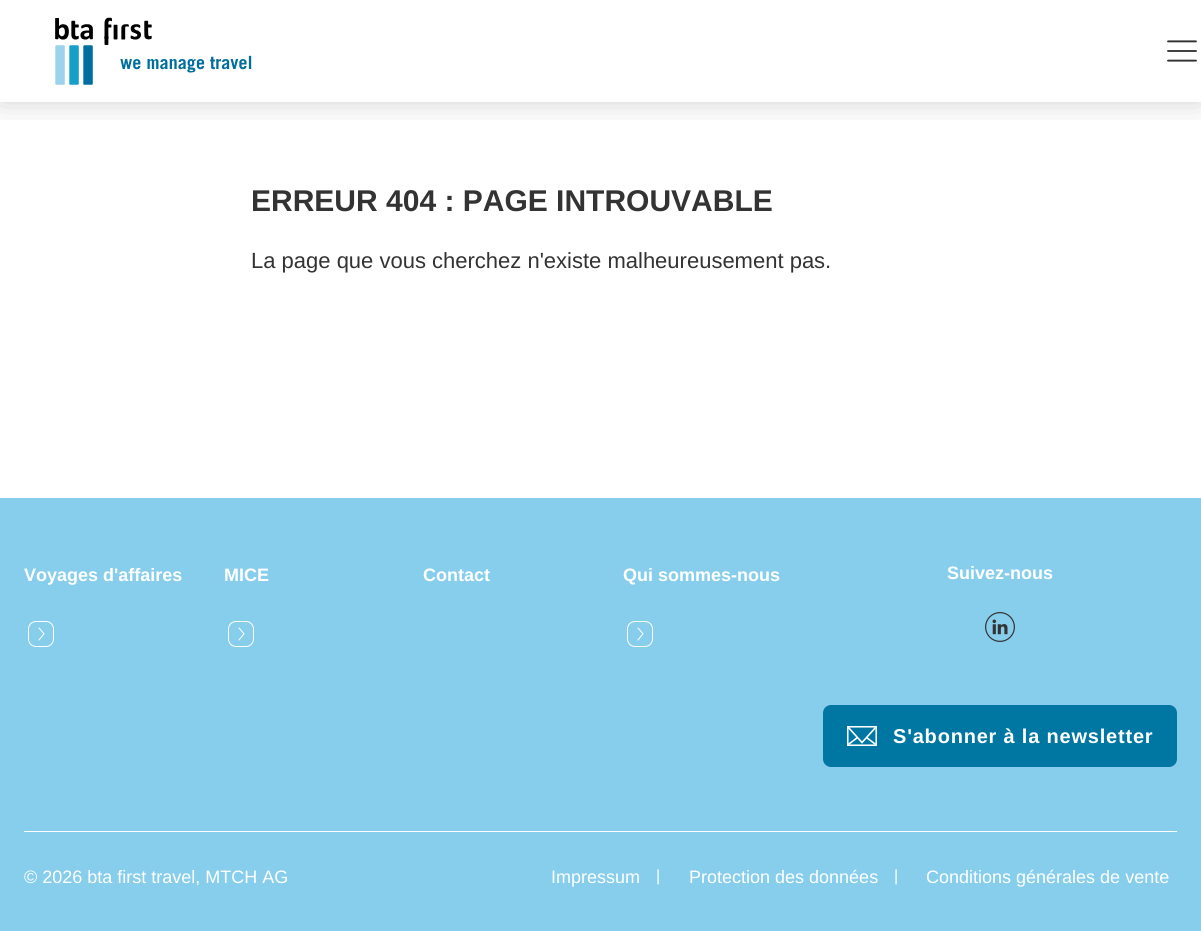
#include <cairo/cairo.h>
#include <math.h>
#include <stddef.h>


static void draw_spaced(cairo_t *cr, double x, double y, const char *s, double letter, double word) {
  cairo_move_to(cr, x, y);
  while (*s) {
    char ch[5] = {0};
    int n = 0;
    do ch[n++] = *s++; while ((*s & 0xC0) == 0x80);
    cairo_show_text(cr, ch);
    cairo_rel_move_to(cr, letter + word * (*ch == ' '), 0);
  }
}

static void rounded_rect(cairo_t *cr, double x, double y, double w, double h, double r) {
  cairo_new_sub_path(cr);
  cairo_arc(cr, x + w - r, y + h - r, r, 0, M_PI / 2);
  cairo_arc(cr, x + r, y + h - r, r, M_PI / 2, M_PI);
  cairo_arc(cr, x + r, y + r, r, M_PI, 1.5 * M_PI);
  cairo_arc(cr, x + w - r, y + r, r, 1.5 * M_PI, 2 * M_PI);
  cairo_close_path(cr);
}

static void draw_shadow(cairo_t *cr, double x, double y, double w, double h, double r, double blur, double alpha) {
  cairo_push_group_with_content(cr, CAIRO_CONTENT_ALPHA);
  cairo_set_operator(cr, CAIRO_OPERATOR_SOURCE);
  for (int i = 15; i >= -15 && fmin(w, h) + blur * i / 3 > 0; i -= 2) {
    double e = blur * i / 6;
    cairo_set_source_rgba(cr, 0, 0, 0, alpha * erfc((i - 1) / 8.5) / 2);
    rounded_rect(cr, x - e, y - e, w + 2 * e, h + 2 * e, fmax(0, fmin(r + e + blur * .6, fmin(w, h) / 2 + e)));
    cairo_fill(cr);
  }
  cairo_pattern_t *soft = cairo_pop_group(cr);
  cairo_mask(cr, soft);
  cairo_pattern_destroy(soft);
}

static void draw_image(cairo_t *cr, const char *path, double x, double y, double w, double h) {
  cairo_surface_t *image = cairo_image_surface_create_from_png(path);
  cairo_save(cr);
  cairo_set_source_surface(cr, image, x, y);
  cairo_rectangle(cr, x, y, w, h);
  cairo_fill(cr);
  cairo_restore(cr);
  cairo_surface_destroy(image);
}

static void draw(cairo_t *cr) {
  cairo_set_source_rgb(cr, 1, 1, 1);
  cairo_paint(cr);
  cairo_save(cr);
  cairo_rectangle(cr, 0, 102, 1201, 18);
  cairo_clip(cr);
  cairo_set_source_rgb(cr, 0, 0, 0);
  draw_shadow(cr, 0, 0, 1201, 102, 0, 15, 0.18);
  cairo_restore(cr);
  draw_image(cr, "images/1.png", 55, 17, 197, 68);
  draw_image(cr, "images/2.png", 1167, 40, 30, 22);
  cairo_set_source_rgb(cr, 135 / 255.0, 206 / 255.0, 236 / 255.0);
  cairo_rectangle(cr, 0, 498, 1201, 433);
  cairo_fill(cr);
  draw_image(cr, "images/3.png", 28, 621, 26, 26);
  draw_image(cr, "images/3.png", 228, 621, 26, 26);
  draw_image(cr, "images/3.png", 627, 621, 26, 26);
  draw_image(cr, "images/4.png", 985, 612, 30, 30);
  cairo_set_source_rgb(cr, 0, 119 / 255.0, 162 / 255.0);
  rounded_rect(cr, 823, 705, 354, 62, 8);
  cairo_fill(cr);
  cairo_save(cr);
  cairo_new_path(cr);
  cairo_move_to(cr, 847, 726);
  cairo_line_to(cr, 877, 726);
  cairo_line_to(cr, 877, 746);
  cairo_line_to(cr, 847, 746);
  cairo_close_path(cr);
  cairo_clip(cr);
  cairo_new_path(cr);
  cairo_move_to(cr, 847.5, 726.5);
  cairo_line_to(cr, 876.5, 726.5);
  cairo_line_to(cr, 876.5, 745.5);
  cairo_line_to(cr, 847.5, 745.5);
  cairo_close_path(cr);
  cairo_set_source_rgb(cr, 1, 1, 1);
  cairo_set_line_width(cr, 2.1);
  cairo_stroke(cr);
  cairo_new_path(cr);
  cairo_move_to(cr, 866.5, 737.5);
  cairo_line_to(cr, 877, 745.5);
  cairo_move_to(cr, 857.5, 737.5);
  cairo_line_to(cr, 847, 745.5);
  cairo_move_to(cr, 847.5, 726.5);
  cairo_line_to(cr, 862, 742.5);
  cairo_line_to(cr, 876.5, 726.5);
  cairo_set_line_width(cr, 1.6);
  cairo_stroke(cr);
  cairo_restore(cr);
  cairo_set_source_rgb(cr, 1, 1, 1);
  cairo_rectangle(cr, 24, 831, 1153, 1);
  cairo_fill(cr);
  cairo_select_font_face(cr, "Liberation Sans", CAIRO_FONT_SLANT_NORMAL, CAIRO_FONT_WEIGHT_BOLD);
  cairo_set_font_size(cr, 30);
  cairo_set_source_rgb(cr, 51 / 255.0, 51 / 255.0, 51 / 255.0);
  cairo_move_to(cr, 251, 211);
  cairo_show_text(cr, "ERREUR 404 : PAGE INTROUVABLE");
  cairo_select_font_face(cr, "Liberation Sans", CAIRO_FONT_SLANT_NORMAL, CAIRO_FONT_WEIGHT_NORMAL);
  cairo_set_font_size(cr, 22);
  cairo_move_to(cr, 251, 268);
  cairo_show_text(cr, "La page que vous cherchez n'existe malheureusement pas.");
  cairo_select_font_face(cr, "Liberation Sans", CAIRO_FONT_SLANT_NORMAL, CAIRO_FONT_WEIGHT_BOLD);
  cairo_set_font_size(cr, 18);
  cairo_set_source_rgb(cr, 1, 1, 1);
  cairo_move_to(cr, 24, 581);
  cairo_show_text(cr, "Voyages d'affaires");
  cairo_move_to(cr, 224, 581);
  cairo_show_text(cr, "MICE");
  cairo_move_to(cr, 423, 581);
  cairo_show_text(cr, "Contact");
  cairo_move_to(cr, 623, 581);
  cairo_show_text(cr, "Qui sommes-nous");
  cairo_move_to(cr, 947, 579);
  cairo_show_text(cr, "Suivez-nous");
  cairo_set_font_size(cr, 20);
  draw_spaced(cr, 893, 743, "S'abonner à la newsletter", 0.8, 0);
  cairo_select_font_face(cr, "Liberation Sans", CAIRO_FONT_SLANT_NORMAL, CAIRO_FONT_WEIGHT_NORMAL);
  cairo_set_font_size(cr, 18);
  cairo_move_to(cr, 24, 883);
  cairo_show_text(cr, "© 2026 bta first travel, MTCH AG");
  cairo_move_to(cr, 551, 883);
  cairo_show_text(cr, "Impressum");
  cairo_set_font_size(cr, 16);
  cairo_move_to(cr, 656, 881);
  cairo_show_text(cr, "|");
  cairo_set_font_size(cr, 18);
  cairo_move_to(cr, 689, 883);
  cairo_show_text(cr, "Protection des données");
  cairo_set_font_size(cr, 16);
  cairo_move_to(cr, 894, 881);
  cairo_show_text(cr, "|");
  cairo_set_font_size(cr, 18);
  cairo_move_to(cr, 926, 883);
  cairo_show_text(cr, "Conditions générales de vente");
}

int main(void) {
  cairo_surface_t *surface = cairo_image_surface_create(CAIRO_FORMAT_RGB24, 1201, 931);
  cairo_t *cr = cairo_create(surface);
  cairo_font_options_t *options = cairo_font_options_create();
  cairo_font_options_set_hint_metrics(options, CAIRO_HINT_METRICS_OFF);
  cairo_font_options_set_hint_style(options, CAIRO_HINT_STYLE_NONE);
  cairo_set_font_options(cr, options);
  cairo_set_miter_limit(cr, 4);
  draw(cr);
  cairo_surface_write_to_png(surface, "out.png");
  cairo_font_options_destroy(options);
  cairo_destroy(cr);
  cairo_surface_destroy(surface);
  return 0;
}
